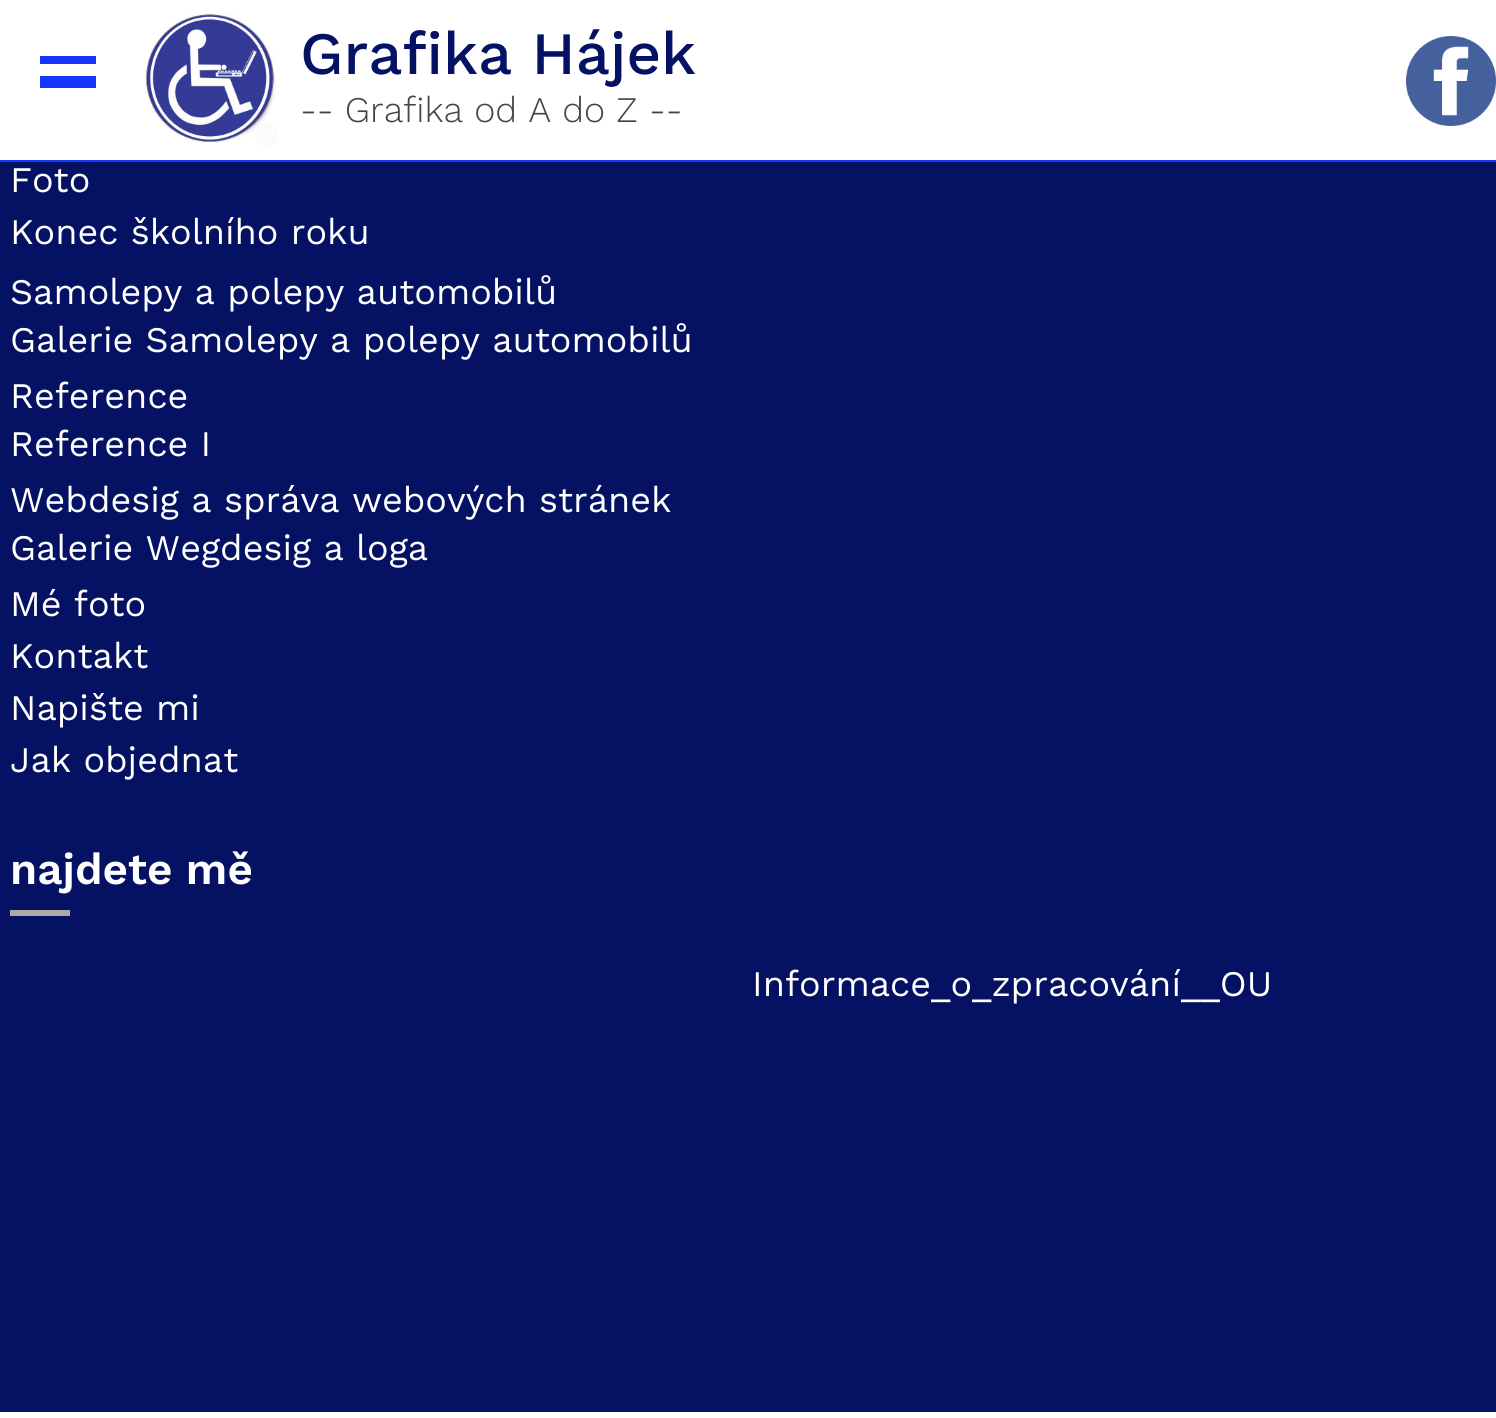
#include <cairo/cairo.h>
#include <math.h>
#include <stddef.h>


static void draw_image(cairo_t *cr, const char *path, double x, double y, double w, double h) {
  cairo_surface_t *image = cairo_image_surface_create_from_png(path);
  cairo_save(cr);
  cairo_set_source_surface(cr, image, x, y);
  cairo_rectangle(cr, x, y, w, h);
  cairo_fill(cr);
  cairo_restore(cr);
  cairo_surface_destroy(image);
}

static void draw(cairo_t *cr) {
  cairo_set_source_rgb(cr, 1, 1, 1);
  cairo_paint(cr);
  cairo_set_source_rgb(cr, 21 / 255.0, 54 / 255.0, 253 / 255.0);
  cairo_rectangle(cr, 0, 160, 1496, 2);
  cairo_fill(cr);
  cairo_rectangle(cr, 40, 76, 56, 12);
  cairo_fill(cr);
  cairo_rectangle(cr, 40, 56, 56, 8);
  cairo_fill(cr);
  draw_image(cr, "images/1.png", 145, 13, 132, 132);
  draw_image(cr, "images/2.png", 1406, 36, 90, 90);
  cairo_set_source_rgb(cr, 5 / 255.0, 18 / 255.0, 99 / 255.0);
  cairo_rectangle(cr, 0, 162, 1496, 1250);
  cairo_fill(cr);
  cairo_set_source_rgb(cr, 170 / 255.0, 170 / 255.0, 170 / 255.0);
  cairo_rectangle(cr, 10, 910, 60, 6);
  cairo_fill(cr);
  cairo_select_font_face(cr, "Work Sans Medium", CAIRO_FONT_SLANT_NORMAL, CAIRO_FONT_WEIGHT_NORMAL);
  cairo_set_font_size(cr, 60);
  cairo_set_source_rgb(cr, 5 / 255.0, 18 / 255.0, 99 / 255.0);
  cairo_move_to(cr, 300, 74);
  cairo_show_text(cr, "Grafika Hájek");
  cairo_select_font_face(cr, "Work Sans Light", CAIRO_FONT_SLANT_NORMAL, CAIRO_FONT_WEIGHT_NORMAL);
  cairo_set_font_size(cr, 36);
  cairo_set_source_rgb(cr, 68 / 255.0, 68 / 255.0, 68 / 255.0);
  cairo_move_to(cr, 300, 122);
  cairo_show_text(cr, "-- Grafika od A do Z --");
  cairo_select_font_face(cr, "Work Sans", CAIRO_FONT_SLANT_NORMAL, CAIRO_FONT_WEIGHT_NORMAL);
  cairo_set_source_rgb(cr, 1, 1, 1);
  cairo_move_to(cr, 10, 192);
  cairo_show_text(cr, "Foto");
  cairo_move_to(cr, 10, 244);
  cairo_show_text(cr, "Konec školního roku");
  cairo_move_to(cr, 10, 304);
  cairo_show_text(cr, "Samolepy a polepy automobilů");
  cairo_move_to(cr, 10, 352);
  cairo_show_text(cr, "Galerie Samolepy a polepy automobilů");
  cairo_move_to(cr, 10, 408);
  cairo_show_text(cr, "Reference");
  cairo_move_to(cr, 10, 456);
  cairo_show_text(cr, "Reference I");
  cairo_move_to(cr, 10, 512);
  cairo_show_text(cr, "Webdesig a správa webových stránek");
  cairo_move_to(cr, 10, 560);
  cairo_show_text(cr, "Galerie Wegdesig a loga");
  cairo_move_to(cr, 10, 616);
  cairo_show_text(cr, "Mé foto");
  cairo_move_to(cr, 10, 668);
  cairo_show_text(cr, "Kontakt");
  cairo_move_to(cr, 10, 720);
  cairo_show_text(cr, "Napište mi");
  cairo_move_to(cr, 10, 772);
  cairo_show_text(cr, "Jak objednat");
  cairo_select_font_face(cr, "Work Sans SemiBold", CAIRO_FONT_SLANT_NORMAL, CAIRO_FONT_WEIGHT_NORMAL);
  cairo_set_font_size(cr, 44);
  cairo_move_to(cr, 10, 884);
  cairo_show_text(cr, "najdete mě");
  cairo_select_font_face(cr, "Work Sans", CAIRO_FONT_SLANT_NORMAL, CAIRO_FONT_WEIGHT_NORMAL);
  cairo_set_font_size(cr, 36);
  cairo_move_to(cr, 752, 996);
  cairo_show_text(cr, "Informace_o_zpracování__OU");
}

int main(void) {
  cairo_surface_t *surface = cairo_image_surface_create(CAIRO_FORMAT_RGB24, 1496, 1418);
  cairo_t *cr = cairo_create(surface);
  cairo_font_options_t *options = cairo_font_options_create();
  cairo_font_options_set_hint_metrics(options, CAIRO_HINT_METRICS_OFF);
  cairo_font_options_set_hint_style(options, CAIRO_HINT_STYLE_NONE);
  cairo_set_font_options(cr, options);
  cairo_set_miter_limit(cr, 4);
  draw(cr);
  cairo_surface_write_to_png(surface, "out.png");
  cairo_font_options_destroy(options);
  cairo_destroy(cr);
  cairo_surface_destroy(surface);
  return 0;
}
